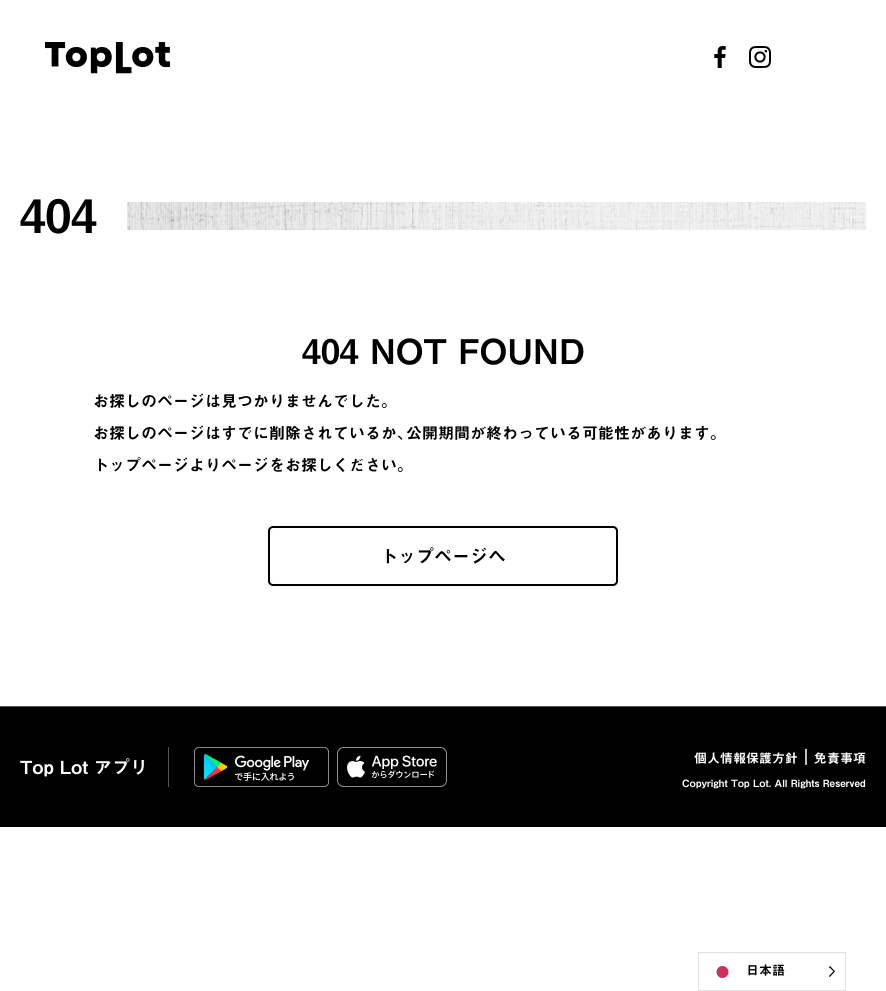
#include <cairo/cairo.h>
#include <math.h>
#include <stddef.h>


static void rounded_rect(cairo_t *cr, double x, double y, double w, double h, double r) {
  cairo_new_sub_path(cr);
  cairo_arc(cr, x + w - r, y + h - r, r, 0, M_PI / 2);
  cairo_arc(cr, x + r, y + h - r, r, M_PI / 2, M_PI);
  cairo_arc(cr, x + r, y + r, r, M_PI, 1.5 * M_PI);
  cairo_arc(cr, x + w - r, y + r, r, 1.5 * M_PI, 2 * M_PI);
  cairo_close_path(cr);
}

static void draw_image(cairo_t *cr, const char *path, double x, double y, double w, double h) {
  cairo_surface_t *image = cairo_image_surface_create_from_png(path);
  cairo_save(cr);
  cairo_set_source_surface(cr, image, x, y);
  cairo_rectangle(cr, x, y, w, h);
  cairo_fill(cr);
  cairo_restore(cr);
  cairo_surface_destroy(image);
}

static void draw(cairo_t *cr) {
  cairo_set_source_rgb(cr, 1, 1, 1);
  cairo_paint(cr);
  draw_image(cr, "images/1.png", 45, 42, 125, 32);
  draw_image(cr, "images/2.png", 714, 46, 12, 22);
  draw_image(cr, "images/3.png", 749, 46, 22, 22);
  draw_image(cr, "images/4.png", 127, 202, 739, 28);
  rounded_rect(cr, 269, 527, 348, 58, 4);
  cairo_set_source_rgb(cr, 0, 0, 0);
  cairo_stroke(cr);
  cairo_rectangle(cr, 0, 707, 886, 120);
  cairo_fill(cr);
  cairo_set_source_rgb(cr, 85 / 255.0, 85 / 255.0, 85 / 255.0);
  cairo_rectangle(cr, 0, 706, 886, 1);
  cairo_fill(cr);
  cairo_rectangle(cr, 168, 747, 1, 40);
  cairo_fill(cr);
  draw_image(cr, "images/5.png", 194, 747, 135, 40);
  draw_image(cr, "images/6.png", 337, 747, 110, 40);
  cairo_rectangle(cr, 698.5, 952.5, 147, 38);
  cairo_set_source_rgb(cr, 224 / 255.0, 224 / 255.0, 224 / 255.0);
  cairo_set_line_width(cr, 1);
  cairo_stroke(cr);
  cairo_set_source_rgb(cr, 201 / 255.0, 51 / 255.0, 87 / 255.0);
  cairo_arc(cr, 722.5, 972, 6, 0, 2 * M_PI);
  cairo_fill(cr);
  draw_image(cr, "images/7.png", 829, 966, 6, 11);
  cairo_select_font_face(cr, "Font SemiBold", CAIRO_FONT_SLANT_NORMAL, CAIRO_FONT_WEIGHT_NORMAL);
  cairo_set_font_size(cr, 46);
  cairo_set_source_rgb(cr, 0, 0, 0);
  cairo_move_to(cr, 20, 233);
  cairo_show_text(cr, "404");
  cairo_set_font_size(cr, 34);
  cairo_move_to(cr, 302, 364);
  cairo_show_text(cr, "404 NOT FOUND");
  cairo_set_font_size(cr, 16);
  cairo_move_to(cr, 93, 407);
  cairo_show_text(cr, "お探しのページは見つかりませんでした");
  cairo_select_font_face(cr, "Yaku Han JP", CAIRO_FONT_SLANT_NORMAL, CAIRO_FONT_WEIGHT_NORMAL);
  cairo_move_to(cr, 381, 407);
  cairo_show_text(cr, "。");
  cairo_select_font_face(cr, "Font SemiBold", CAIRO_FONT_SLANT_NORMAL, CAIRO_FONT_WEIGHT_NORMAL);
  cairo_move_to(cr, 93, 439);
  cairo_show_text(cr, "お探しのページはすでに削除されているか");
  cairo_select_font_face(cr, "Yaku Han JP", CAIRO_FONT_SLANT_NORMAL, CAIRO_FONT_WEIGHT_NORMAL);
  cairo_move_to(cr, 397, 439);
  cairo_show_text(cr, "、");
  cairo_select_font_face(cr, "Font SemiBold", CAIRO_FONT_SLANT_NORMAL, CAIRO_FONT_WEIGHT_NORMAL);
  cairo_move_to(cr, 406, 439);
  cairo_show_text(cr, "公開期間が終わっている可能性があります");
  cairo_select_font_face(cr, "Yaku Han JP", CAIRO_FONT_SLANT_NORMAL, CAIRO_FONT_WEIGHT_NORMAL);
  cairo_move_to(cr, 710, 439);
  cairo_show_text(cr, "。");
  cairo_select_font_face(cr, "Font SemiBold", CAIRO_FONT_SLANT_NORMAL, CAIRO_FONT_WEIGHT_NORMAL);
  cairo_move_to(cr, 93, 471);
  cairo_show_text(cr, "トップページよりページをお探しください");
  cairo_select_font_face(cr, "Yaku Han JP", CAIRO_FONT_SLANT_NORMAL, CAIRO_FONT_WEIGHT_NORMAL);
  cairo_move_to(cr, 397, 471);
  cairo_show_text(cr, "。");
  cairo_select_font_face(cr, "Font SemiBold", CAIRO_FONT_SLANT_NORMAL, CAIRO_FONT_WEIGHT_NORMAL);
  cairo_set_font_size(cr, 18);
  cairo_move_to(cr, 380, 563);
  cairo_show_text(cr, "トップページへ");
  cairo_set_source_rgb(cr, 1, 1, 1);
  cairo_move_to(cr, 20, 774);
  cairo_show_text(cr, "Top Lot アプリ");
  cairo_set_font_size(cr, 13);
  cairo_move_to(cr, 694, 763);
  cairo_show_text(cr, "個人情報保護方針");
  cairo_set_font_size(cr, 16);
  cairo_move_to(cr, 798, 763);
  cairo_show_text(cr, "｜");
  cairo_set_font_size(cr, 13);
  cairo_move_to(cr, 814, 763);
  cairo_show_text(cr, "免責事項");
  cairo_set_font_size(cr, 10);
  cairo_move_to(cr, 682, 787);
  cairo_show_text(cr, "Copyright Top Lot. All Rights Reserved");
  cairo_set_font_size(cr, 13);
  cairo_set_source_rgb(cr, 0, 0, 0);
  cairo_move_to(cr, 746, 975);
  cairo_show_text(cr, "日本語");
}

int main(void) {
  cairo_surface_t *surface = cairo_image_surface_create(CAIRO_FORMAT_RGB24, 886, 991);
  cairo_t *cr = cairo_create(surface);
  cairo_font_options_t *options = cairo_font_options_create();
  cairo_font_options_set_hint_metrics(options, CAIRO_HINT_METRICS_OFF);
  cairo_font_options_set_hint_style(options, CAIRO_HINT_STYLE_NONE);
  cairo_set_font_options(cr, options);
  cairo_set_miter_limit(cr, 4);
  draw(cr);
  cairo_surface_write_to_png(surface, "out.png");
  cairo_font_options_destroy(options);
  cairo_destroy(cr);
  cairo_surface_destroy(surface);
  return 0;
}
